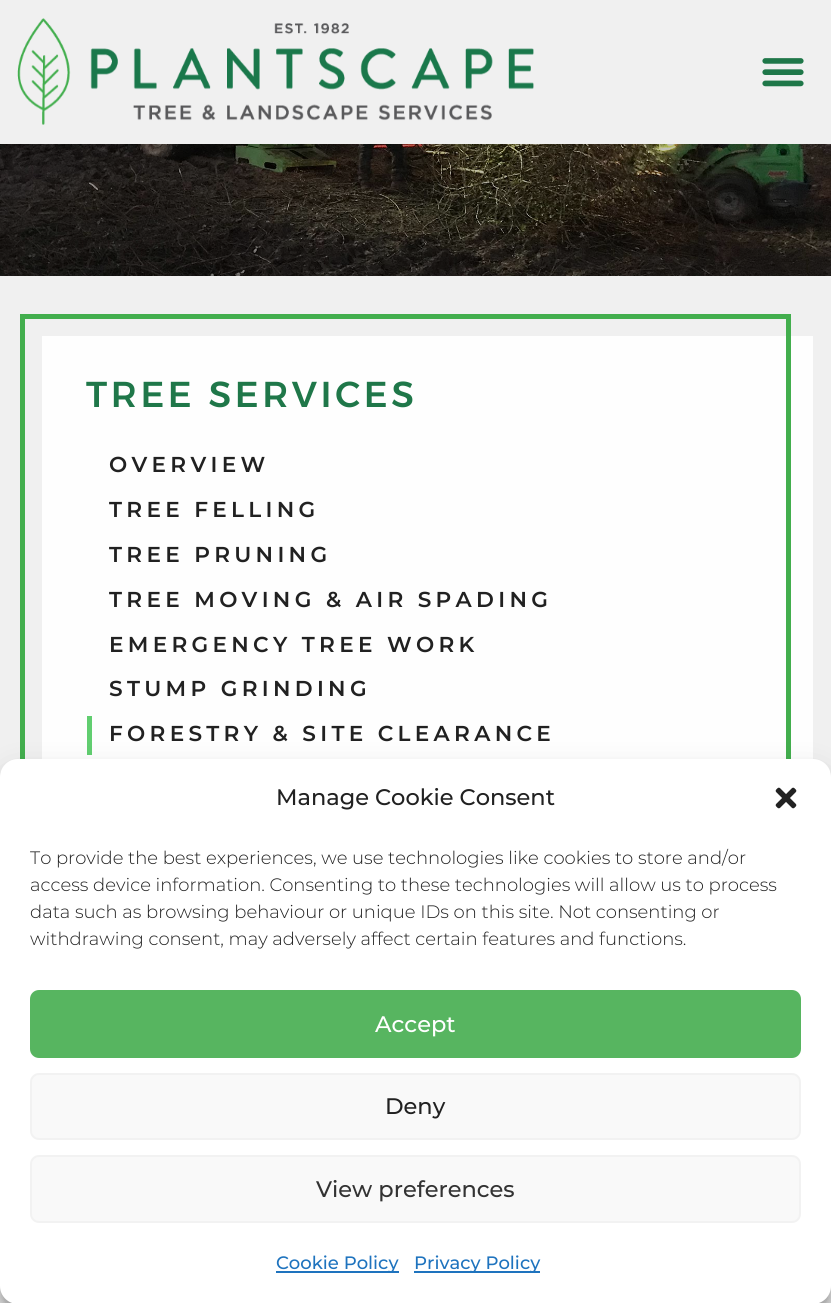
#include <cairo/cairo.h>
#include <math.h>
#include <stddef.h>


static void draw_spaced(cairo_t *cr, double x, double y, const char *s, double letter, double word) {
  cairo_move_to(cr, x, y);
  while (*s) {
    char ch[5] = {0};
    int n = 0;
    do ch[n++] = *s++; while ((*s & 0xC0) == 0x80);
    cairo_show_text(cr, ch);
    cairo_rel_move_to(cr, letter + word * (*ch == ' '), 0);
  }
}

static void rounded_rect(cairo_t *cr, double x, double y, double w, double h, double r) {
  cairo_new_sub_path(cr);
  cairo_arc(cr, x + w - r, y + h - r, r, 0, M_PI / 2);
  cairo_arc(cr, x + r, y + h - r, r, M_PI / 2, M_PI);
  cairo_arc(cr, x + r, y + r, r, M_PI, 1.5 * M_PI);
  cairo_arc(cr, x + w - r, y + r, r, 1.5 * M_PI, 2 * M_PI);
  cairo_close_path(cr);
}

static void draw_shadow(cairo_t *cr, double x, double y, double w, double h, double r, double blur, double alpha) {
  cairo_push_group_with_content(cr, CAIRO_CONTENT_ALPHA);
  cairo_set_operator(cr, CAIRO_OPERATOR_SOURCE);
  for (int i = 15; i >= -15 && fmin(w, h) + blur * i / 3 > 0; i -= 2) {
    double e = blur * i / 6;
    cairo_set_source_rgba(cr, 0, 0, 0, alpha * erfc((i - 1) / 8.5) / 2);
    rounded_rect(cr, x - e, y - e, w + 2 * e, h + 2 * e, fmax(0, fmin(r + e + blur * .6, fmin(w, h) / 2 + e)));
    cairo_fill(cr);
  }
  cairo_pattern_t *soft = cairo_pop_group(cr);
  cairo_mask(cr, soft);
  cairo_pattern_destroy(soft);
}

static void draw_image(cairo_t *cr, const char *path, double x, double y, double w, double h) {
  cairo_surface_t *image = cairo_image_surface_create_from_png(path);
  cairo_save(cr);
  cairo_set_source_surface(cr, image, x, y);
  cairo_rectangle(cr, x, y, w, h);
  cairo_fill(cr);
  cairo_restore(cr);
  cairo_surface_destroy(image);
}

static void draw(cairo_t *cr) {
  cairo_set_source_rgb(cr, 240 / 255.0, 240 / 255.0, 240 / 255.0);
  cairo_paint(cr);
  draw_image(cr, "images/1.png", 17, 18, 517, 107);
  draw_image(cr, "images/2.png", 762, 58, 42, 29);
  draw_image(cr, "images/3.png", 0, 144, 831, 132);
  cairo_set_source_rgb(cr, 254 / 255.0, 254 / 255.0, 254 / 255.0);
  cairo_rectangle(cr, 42, 336, 771, 423);
  cairo_fill(cr);
  cairo_rectangle(cr, 22.5, 316.5, 766, 556);
  cairo_set_source_rgb(cr, 66 / 255.0, 174 / 255.0, 77 / 255.0);
  cairo_set_line_width(cr, 5);
  cairo_stroke(cr);
  cairo_set_source_rgb(cr, 97 / 255.0, 206 / 255.0, 112 / 255.0);
  cairo_rectangle(cr, 87, 716, 5, 39);
  cairo_fill(cr);
  cairo_set_source_rgb(cr, 0, 0, 0);
  draw_shadow(cr, 0, 768, 831, 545, 18, 4.5, 0.23);
  draw_shadow(cr, 0, 774, 831, 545, 18, 15, 0.19);
  cairo_set_source_rgb(cr, 1, 1, 1);
  rounded_rect(cr, 0, 759, 831, 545, 18);
  cairo_fill(cr);
  draw_image(cr, "images/4.png", 775, 787, 22, 22);
  cairo_set_source_rgb(cr, 87 / 255.0, 181 / 255.0, 96 / 255.0);
  rounded_rect(cr, 31, 991, 769, 66, 8);
  cairo_fill_preserve(cr);
  cairo_set_line_width(cr, 2);
  cairo_stroke(cr);
  cairo_set_source_rgb(cr, 249 / 255.0, 249 / 255.0, 249 / 255.0);
  rounded_rect(cr, 31, 1074, 769, 65, 8);
  cairo_fill_preserve(cr);
  cairo_set_source_rgb(cr, 242 / 255.0, 242 / 255.0, 242 / 255.0);
  cairo_stroke(cr);
  cairo_set_source_rgb(cr, 249 / 255.0, 249 / 255.0, 249 / 255.0);
  rounded_rect(cr, 31, 1156, 769, 66, 8);
  cairo_fill_preserve(cr);
  cairo_set_source_rgb(cr, 242 / 255.0, 242 / 255.0, 242 / 255.0);
  cairo_stroke(cr);
  cairo_set_source_rgb(cr, 30 / 255.0, 115 / 255.0, 190 / 255.0);
  cairo_rectangle(cr, 276, 1271, 123, 2);
  cairo_fill(cr);
  cairo_rectangle(cr, 414, 1271, 126, 2);
  cairo_fill(cr);
  cairo_select_font_face(cr, "Alexandria Medium", CAIRO_FONT_SLANT_NORMAL, CAIRO_FONT_WEIGHT_NORMAL);
  cairo_set_font_size(cr, 36);
  cairo_set_source_rgb(cr, 31 / 255.0, 119 / 255.0, 73 / 255.0);
  draw_spaced(cr, 86, 407, "TREE SERVICES", 3.6, 0);
  cairo_select_font_face(cr, "Montserrat SemiBold", CAIRO_FONT_SLANT_NORMAL, CAIRO_FONT_WEIGHT_NORMAL);
  cairo_set_font_size(cr, 21.6);
  cairo_set_source_rgb(cr, 33 / 255.0, 33 / 255.0, 33 / 255.0);
  draw_spaced(cr, 109, 472, "OVERVIEW", 4.3, 0);
  draw_spaced(cr, 109, 517, "TREE FELLING", 4.3, 0);
  draw_spaced(cr, 109, 562, "TREE PRUNING", 4.3, 0);
  draw_spaced(cr, 109, 607, "TREE MOVING & AIR SPADING", 4.3, 0);
  draw_spaced(cr, 109, 652, "EMERGENCY TREE WORK", 4.3, 0);
  draw_spaced(cr, 109, 696, "STUMP GRINDING", 4.3, 0);
  draw_spaced(cr, 109, 741, "FORESTRY & SITE CLEARANCE", 4.3, 0);
  cairo_select_font_face(cr, "Montserrat Medium", CAIRO_FONT_SLANT_NORMAL, CAIRO_FONT_WEIGHT_NORMAL);
  cairo_set_font_size(cr, 22.5);
  cairo_move_to(cr, 276, 805);
  cairo_show_text(cr, "Manage Cookie Consent");
  cairo_select_font_face(cr, "Montserrat Light", CAIRO_FONT_SLANT_NORMAL, CAIRO_FONT_WEIGHT_NORMAL);
  cairo_set_font_size(cr, 18);
  cairo_move_to(cr, 30, 864);
  cairo_show_text(cr, "To provide the best experiences, we use technologies like cookies to store and/or");
  cairo_move_to(cr, 30, 891);
  cairo_show_text(cr, "access device information. Consenting to these technologies will allow us to process");
  cairo_move_to(cr, 30, 918);
  cairo_show_text(cr, "data such as browsing behaviour or unique IDs on this site. Not consenting or");
  cairo_move_to(cr, 30, 945);
  cairo_show_text(cr, "withdrawing consent, may adversely affect certain features and functions.");
  cairo_select_font_face(cr, "Montserrat Medium", CAIRO_FONT_SLANT_NORMAL, CAIRO_FONT_WEIGHT_NORMAL);
  cairo_set_font_size(cr, 22.5);
  cairo_set_source_rgb(cr, 1, 1, 1);
  cairo_move_to(cr, 375, 1032);
  cairo_show_text(cr, "Accept");
  cairo_set_source_rgb(cr, 33 / 255.0, 33 / 255.0, 33 / 255.0);
  cairo_move_to(cr, 385, 1114);
  cairo_show_text(cr, "Deny");
  cairo_set_source_rgb(cr, 51 / 255.0, 51 / 255.0, 51 / 255.0);
  cairo_move_to(cr, 316, 1197);
  cairo_show_text(cr, "View preferences");
  cairo_set_font_size(cr, 18);
  cairo_set_source_rgb(cr, 30 / 255.0, 115 / 255.0, 190 / 255.0);
  cairo_move_to(cr, 276, 1269);
  cairo_show_text(cr, "Cookie Policy");
  cairo_move_to(cr, 414, 1269);
  cairo_show_text(cr, "Privacy Policy");
}

int main(void) {
  cairo_surface_t *surface = cairo_image_surface_create(CAIRO_FORMAT_RGB24, 831, 1303);
  cairo_t *cr = cairo_create(surface);
  cairo_font_options_t *options = cairo_font_options_create();
  cairo_font_options_set_hint_metrics(options, CAIRO_HINT_METRICS_OFF);
  cairo_font_options_set_hint_style(options, CAIRO_HINT_STYLE_NONE);
  cairo_set_font_options(cr, options);
  cairo_set_miter_limit(cr, 4);
  draw(cr);
  cairo_surface_write_to_png(surface, "out.png");
  cairo_font_options_destroy(options);
  cairo_destroy(cr);
  cairo_surface_destroy(surface);
  return 0;
}
